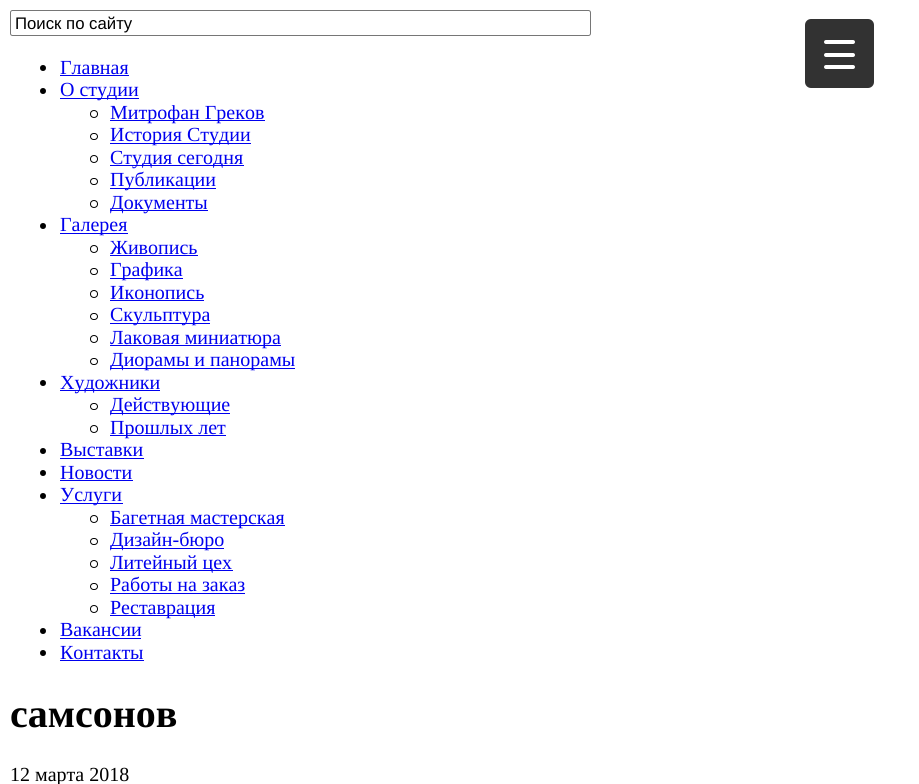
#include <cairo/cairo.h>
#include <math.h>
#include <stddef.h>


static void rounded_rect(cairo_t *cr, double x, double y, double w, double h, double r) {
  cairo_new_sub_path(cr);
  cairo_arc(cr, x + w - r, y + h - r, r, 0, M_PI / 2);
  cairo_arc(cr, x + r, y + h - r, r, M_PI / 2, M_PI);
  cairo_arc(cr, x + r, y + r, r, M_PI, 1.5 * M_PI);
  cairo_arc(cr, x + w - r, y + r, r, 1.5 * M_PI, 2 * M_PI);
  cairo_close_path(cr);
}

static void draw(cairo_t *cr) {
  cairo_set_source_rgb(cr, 1, 1, 1);
  cairo_paint(cr);
  rounded_rect(cr, 10.5, 10.5, 580, 25, 2);
  cairo_set_source_rgb(cr, 118 / 255.0, 118 / 255.0, 118 / 255.0);
  cairo_set_line_width(cr, 1);
  cairo_stroke(cr);
  cairo_set_source_rgb(cr, 0, 0, 0);
  cairo_arc(cr, 43, 68, 3, 0, 2 * M_PI);
  cairo_fill(cr);
  cairo_set_source_rgb(cr, 0, 0, 238 / 255.0);
  cairo_rectangle(cr, 60, 75, 69, 1);
  cairo_fill(cr);
  cairo_set_source_rgb(cr, 0, 0, 0);
  cairo_arc(cr, 43, 91, 3, 0, 2 * M_PI);
  cairo_fill(cr);
  cairo_set_source_rgb(cr, 0, 0, 238 / 255.0);
  cairo_rectangle(cr, 60, 98, 79, 1);
  cairo_fill(cr);
  cairo_arc(cr, 94, 114, 3.5, 0, 2 * M_PI);
  cairo_set_source_rgb(cr, 0, 0, 0);
  cairo_stroke(cr);
  cairo_set_source_rgb(cr, 0, 0, 238 / 255.0);
  cairo_rectangle(cr, 110, 120, 155, 1);
  cairo_fill(cr);
  rounded_rect(cr, 90.5, 133.5, 7, 6, 3);
  cairo_set_source_rgb(cr, 0, 0, 0);
  cairo_stroke(cr);
  cairo_set_source_rgb(cr, 0, 0, 238 / 255.0);
  cairo_rectangle(cr, 110, 143, 141, 1);
  cairo_fill(cr);
  cairo_arc(cr, 94, 159, 3.5, 0, 2 * M_PI);
  cairo_set_source_rgb(cr, 0, 0, 0);
  cairo_stroke(cr);
  cairo_set_source_rgb(cr, 0, 0, 238 / 255.0);
  cairo_rectangle(cr, 110, 165, 134, 1);
  cairo_fill(cr);
  rounded_rect(cr, 90.5, 178.5, 7, 6, 3);
  cairo_set_source_rgb(cr, 0, 0, 0);
  cairo_stroke(cr);
  cairo_set_source_rgb(cr, 0, 0, 238 / 255.0);
  cairo_rectangle(cr, 110, 188, 106, 1);
  cairo_fill(cr);
  cairo_arc(cr, 94, 204, 3.5, 0, 2 * M_PI);
  cairo_set_source_rgb(cr, 0, 0, 0);
  cairo_stroke(cr);
  cairo_set_source_rgb(cr, 0, 0, 238 / 255.0);
  cairo_rectangle(cr, 110, 210, 98, 1);
  cairo_fill(cr);
  cairo_set_source_rgb(cr, 0, 0, 0);
  cairo_arc(cr, 43, 226, 3, 0, 2 * M_PI);
  cairo_fill(cr);
  cairo_set_source_rgb(cr, 0, 0, 238 / 255.0);
  cairo_rectangle(cr, 60, 233, 68, 1);
  cairo_fill(cr);
  cairo_arc(cr, 94, 249, 3.5, 0, 2 * M_PI);
  cairo_set_source_rgb(cr, 0, 0, 0);
  cairo_stroke(cr);
  cairo_set_source_rgb(cr, 0, 0, 238 / 255.0);
  cairo_rectangle(cr, 110, 255, 88, 1);
  cairo_fill(cr);
  rounded_rect(cr, 90.5, 268.5, 7, 6, 3);
  cairo_set_source_rgb(cr, 0, 0, 0);
  cairo_stroke(cr);
  cairo_set_source_rgb(cr, 0, 0, 238 / 255.0);
  cairo_rectangle(cr, 110, 278, 73, 1);
  cairo_fill(cr);
  cairo_arc(cr, 94, 294, 3.5, 0, 2 * M_PI);
  cairo_set_source_rgb(cr, 0, 0, 0);
  cairo_stroke(cr);
  cairo_set_source_rgb(cr, 0, 0, 238 / 255.0);
  cairo_rectangle(cr, 110, 300, 94, 1);
  cairo_fill(cr);
  rounded_rect(cr, 90.5, 313.5, 7, 6, 3);
  cairo_set_source_rgb(cr, 0, 0, 0);
  cairo_stroke(cr);
  cairo_set_source_rgb(cr, 0, 0, 238 / 255.0);
  cairo_rectangle(cr, 110, 323, 100, 1);
  cairo_fill(cr);
  cairo_arc(cr, 94, 339, 3.5, 0, 2 * M_PI);
  cairo_set_source_rgb(cr, 0, 0, 0);
  cairo_stroke(cr);
  cairo_set_source_rgb(cr, 0, 0, 238 / 255.0);
  cairo_rectangle(cr, 110, 345, 171, 1);
  cairo_fill(cr);
  rounded_rect(cr, 90.5, 358.5, 7, 6, 3);
  cairo_set_source_rgb(cr, 0, 0, 0);
  cairo_stroke(cr);
  cairo_set_source_rgb(cr, 0, 0, 238 / 255.0);
  cairo_rectangle(cr, 110, 368, 185, 1);
  cairo_fill(cr);
  cairo_set_source_rgb(cr, 0, 0, 0);
  cairo_arc(cr, 43, 383, 3, 0, 2 * M_PI);
  cairo_fill(cr);
  cairo_set_source_rgb(cr, 0, 0, 238 / 255.0);
  cairo_rectangle(cr, 60, 390, 100, 1);
  cairo_fill(cr);
  rounded_rect(cr, 90.5, 403.5, 7, 6, 3);
  cairo_set_source_rgb(cr, 0, 0, 0);
  cairo_stroke(cr);
  cairo_set_source_rgb(cr, 0, 0, 238 / 255.0);
  cairo_rectangle(cr, 110, 413, 120, 1);
  cairo_fill(cr);
  cairo_arc(cr, 94, 429, 3.5, 0, 2 * M_PI);
  cairo_set_source_rgb(cr, 0, 0, 0);
  cairo_stroke(cr);
  cairo_set_source_rgb(cr, 0, 0, 238 / 255.0);
  cairo_rectangle(cr, 110, 435, 116, 1);
  cairo_fill(cr);
  cairo_set_source_rgb(cr, 0, 0, 0);
  cairo_arc(cr, 43, 451, 3, 0, 2 * M_PI);
  cairo_fill(cr);
  cairo_set_source_rgb(cr, 0, 0, 238 / 255.0);
  cairo_rectangle(cr, 60, 458, 84, 1);
  cairo_fill(cr);
  cairo_set_source_rgb(cr, 0, 0, 0);
  cairo_arc(cr, 43, 473, 3, 0, 2 * M_PI);
  cairo_fill(cr);
  cairo_set_source_rgb(cr, 0, 0, 238 / 255.0);
  cairo_rectangle(cr, 60, 480, 73, 1);
  cairo_fill(cr);
  cairo_set_source_rgb(cr, 0, 0, 0);
  cairo_arc(cr, 43, 496, 3, 0, 2 * M_PI);
  cairo_fill(cr);
  cairo_set_source_rgb(cr, 0, 0, 238 / 255.0);
  cairo_rectangle(cr, 60, 503, 63, 1);
  cairo_fill(cr);
  cairo_arc(cr, 94, 519, 3.5, 0, 2 * M_PI);
  cairo_set_source_rgb(cr, 0, 0, 0);
  cairo_stroke(cr);
  cairo_set_source_rgb(cr, 0, 0, 238 / 255.0);
  cairo_rectangle(cr, 110, 525, 175, 1);
  cairo_fill(cr);
  rounded_rect(cr, 90.5, 538.5, 7, 6, 3);
  cairo_set_source_rgb(cr, 0, 0, 0);
  cairo_stroke(cr);
  cairo_set_source_rgb(cr, 0, 0, 238 / 255.0);
  cairo_rectangle(cr, 110, 548, 114, 1);
  cairo_fill(cr);
  cairo_arc(cr, 94, 564, 3.5, 0, 2 * M_PI);
  cairo_set_source_rgb(cr, 0, 0, 0);
  cairo_stroke(cr);
  cairo_set_source_rgb(cr, 0, 0, 238 / 255.0);
  cairo_rectangle(cr, 110, 570, 123, 1);
  cairo_fill(cr);
  rounded_rect(cr, 90.5, 583.5, 7, 6, 3);
  cairo_set_source_rgb(cr, 0, 0, 0);
  cairo_stroke(cr);
  cairo_set_source_rgb(cr, 0, 0, 238 / 255.0);
  cairo_rectangle(cr, 110, 593, 135, 1);
  cairo_fill(cr);
  cairo_arc(cr, 94, 609, 3.5, 0, 2 * M_PI);
  cairo_set_source_rgb(cr, 0, 0, 0);
  cairo_stroke(cr);
  cairo_set_source_rgb(cr, 0, 0, 238 / 255.0);
  cairo_rectangle(cr, 110, 615, 105, 1);
  cairo_fill(cr);
  cairo_set_source_rgb(cr, 0, 0, 0);
  cairo_arc(cr, 43, 631, 3, 0, 2 * M_PI);
  cairo_fill(cr);
  cairo_set_source_rgb(cr, 0, 0, 238 / 255.0);
  cairo_rectangle(cr, 60, 638, 81, 1);
  cairo_fill(cr);
  cairo_set_source_rgb(cr, 0, 0, 0);
  cairo_arc(cr, 43, 653, 3, 0, 2 * M_PI);
  cairo_fill(cr);
  cairo_set_source_rgb(cr, 0, 0, 238 / 255.0);
  cairo_rectangle(cr, 60, 660, 84, 1);
  cairo_fill(cr);
  cairo_set_source_rgb(cr, 50 / 255.0, 50 / 255.0, 50 / 255.0);
  rounded_rect(cr, 805, 19, 69, 69, 6);
  cairo_fill(cr);
  cairo_set_source_rgb(cr, 1, 1, 1);
  rounded_rect(cr, 824, 53, 31, 4, 2);
  cairo_fill(cr);
  rounded_rect(cr, 824, 40, 31, 4, 2);
  cairo_fill(cr);
  rounded_rect(cr, 824, 65, 31, 4, 2);
  cairo_fill(cr);
  cairo_select_font_face(cr, "Liberation Sans", CAIRO_FONT_SLANT_NORMAL, CAIRO_FONT_WEIGHT_NORMAL);
  cairo_set_font_size(cr, 16.75);
  cairo_set_source_rgb(cr, 0, 0, 0);
  cairo_move_to(cr, 15, 29);
  cairo_show_text(cr, "Поиск по сайту");
  cairo_select_font_face(cr, "Liberation Serif", CAIRO_FONT_SLANT_NORMAL, CAIRO_FONT_WEIGHT_NORMAL);
  cairo_set_font_size(cr, 20);
  cairo_set_source_rgb(cr, 0, 0, 238 / 255.0);
  cairo_move_to(cr, 60, 74);
  cairo_show_text(cr, "Главная");
  cairo_move_to(cr, 60, 96);
  cairo_show_text(cr, "О студии");
  cairo_move_to(cr, 110, 119);
  cairo_show_text(cr, "Митрофан Греков");
  cairo_move_to(cr, 110, 141);
  cairo_show_text(cr, "История Студии");
  cairo_move_to(cr, 110, 164);
  cairo_show_text(cr, "Студия сегодня");
  cairo_move_to(cr, 110, 186);
  cairo_show_text(cr, "Публикации");
  cairo_move_to(cr, 110, 209);
  cairo_show_text(cr, "Документы");
  cairo_move_to(cr, 60, 231);
  cairo_show_text(cr, "Галерея");
  cairo_move_to(cr, 110, 254);
  cairo_show_text(cr, "Живопись");
  cairo_move_to(cr, 110, 276);
  cairo_show_text(cr, "Графика");
  cairo_move_to(cr, 110, 299);
  cairo_show_text(cr, "Иконопись");
  cairo_move_to(cr, 110, 321);
  cairo_show_text(cr, "Скульптура");
  cairo_move_to(cr, 110, 344);
  cairo_show_text(cr, "Лаковая миниатюра");
  cairo_move_to(cr, 110, 366);
  cairo_show_text(cr, "Диорамы и панорамы");
  cairo_move_to(cr, 60, 389);
  cairo_show_text(cr, "Художники");
  cairo_move_to(cr, 110, 411);
  cairo_show_text(cr, "Действующие");
  cairo_move_to(cr, 110, 434);
  cairo_show_text(cr, "Прошлых лет");
  cairo_move_to(cr, 60, 456);
  cairo_show_text(cr, "Выставки");
  cairo_move_to(cr, 60, 479);
  cairo_show_text(cr, "Новости");
  cairo_move_to(cr, 60, 501);
  cairo_show_text(cr, "Услуги");
  cairo_move_to(cr, 110, 524);
  cairo_show_text(cr, "Багетная мастерская");
  cairo_move_to(cr, 110, 546);
  cairo_show_text(cr, "Дизайн-бюро");
  cairo_move_to(cr, 110, 569);
  cairo_show_text(cr, "Литейный цех");
  cairo_move_to(cr, 110, 591);
  cairo_show_text(cr, "Работы на заказ");
  cairo_move_to(cr, 110, 614);
  cairo_show_text(cr, "Реставрация");
  cairo_move_to(cr, 60, 636);
  cairo_show_text(cr, "Вакансии");
  cairo_move_to(cr, 60, 659);
  cairo_show_text(cr, "Контакты");
  cairo_select_font_face(cr, "Liberation Serif", CAIRO_FONT_SLANT_NORMAL, CAIRO_FONT_WEIGHT_BOLD);
  cairo_set_font_size(cr, 40);
  cairo_set_source_rgb(cr, 0, 0, 0);
  cairo_move_to(cr, 10, 727);
  cairo_show_text(cr, "самсонов");
  cairo_select_font_face(cr, "Liberation Serif", CAIRO_FONT_SLANT_NORMAL, CAIRO_FONT_WEIGHT_NORMAL);
  cairo_set_font_size(cr, 20);
  cairo_move_to(cr, 10, 781);
  cairo_show_text(cr, "12 марта 2018");
}

int main(void) {
  cairo_surface_t *surface = cairo_image_surface_create(CAIRO_FORMAT_RGB24, 919, 784);
  cairo_t *cr = cairo_create(surface);
  cairo_font_options_t *options = cairo_font_options_create();
  cairo_font_options_set_hint_metrics(options, CAIRO_HINT_METRICS_OFF);
  cairo_font_options_set_hint_style(options, CAIRO_HINT_STYLE_NONE);
  cairo_set_font_options(cr, options);
  cairo_set_miter_limit(cr, 4);
  draw(cr);
  cairo_surface_write_to_png(surface, "out.png");
  cairo_font_options_destroy(options);
  cairo_destroy(cr);
  cairo_surface_destroy(surface);
  return 0;
}
